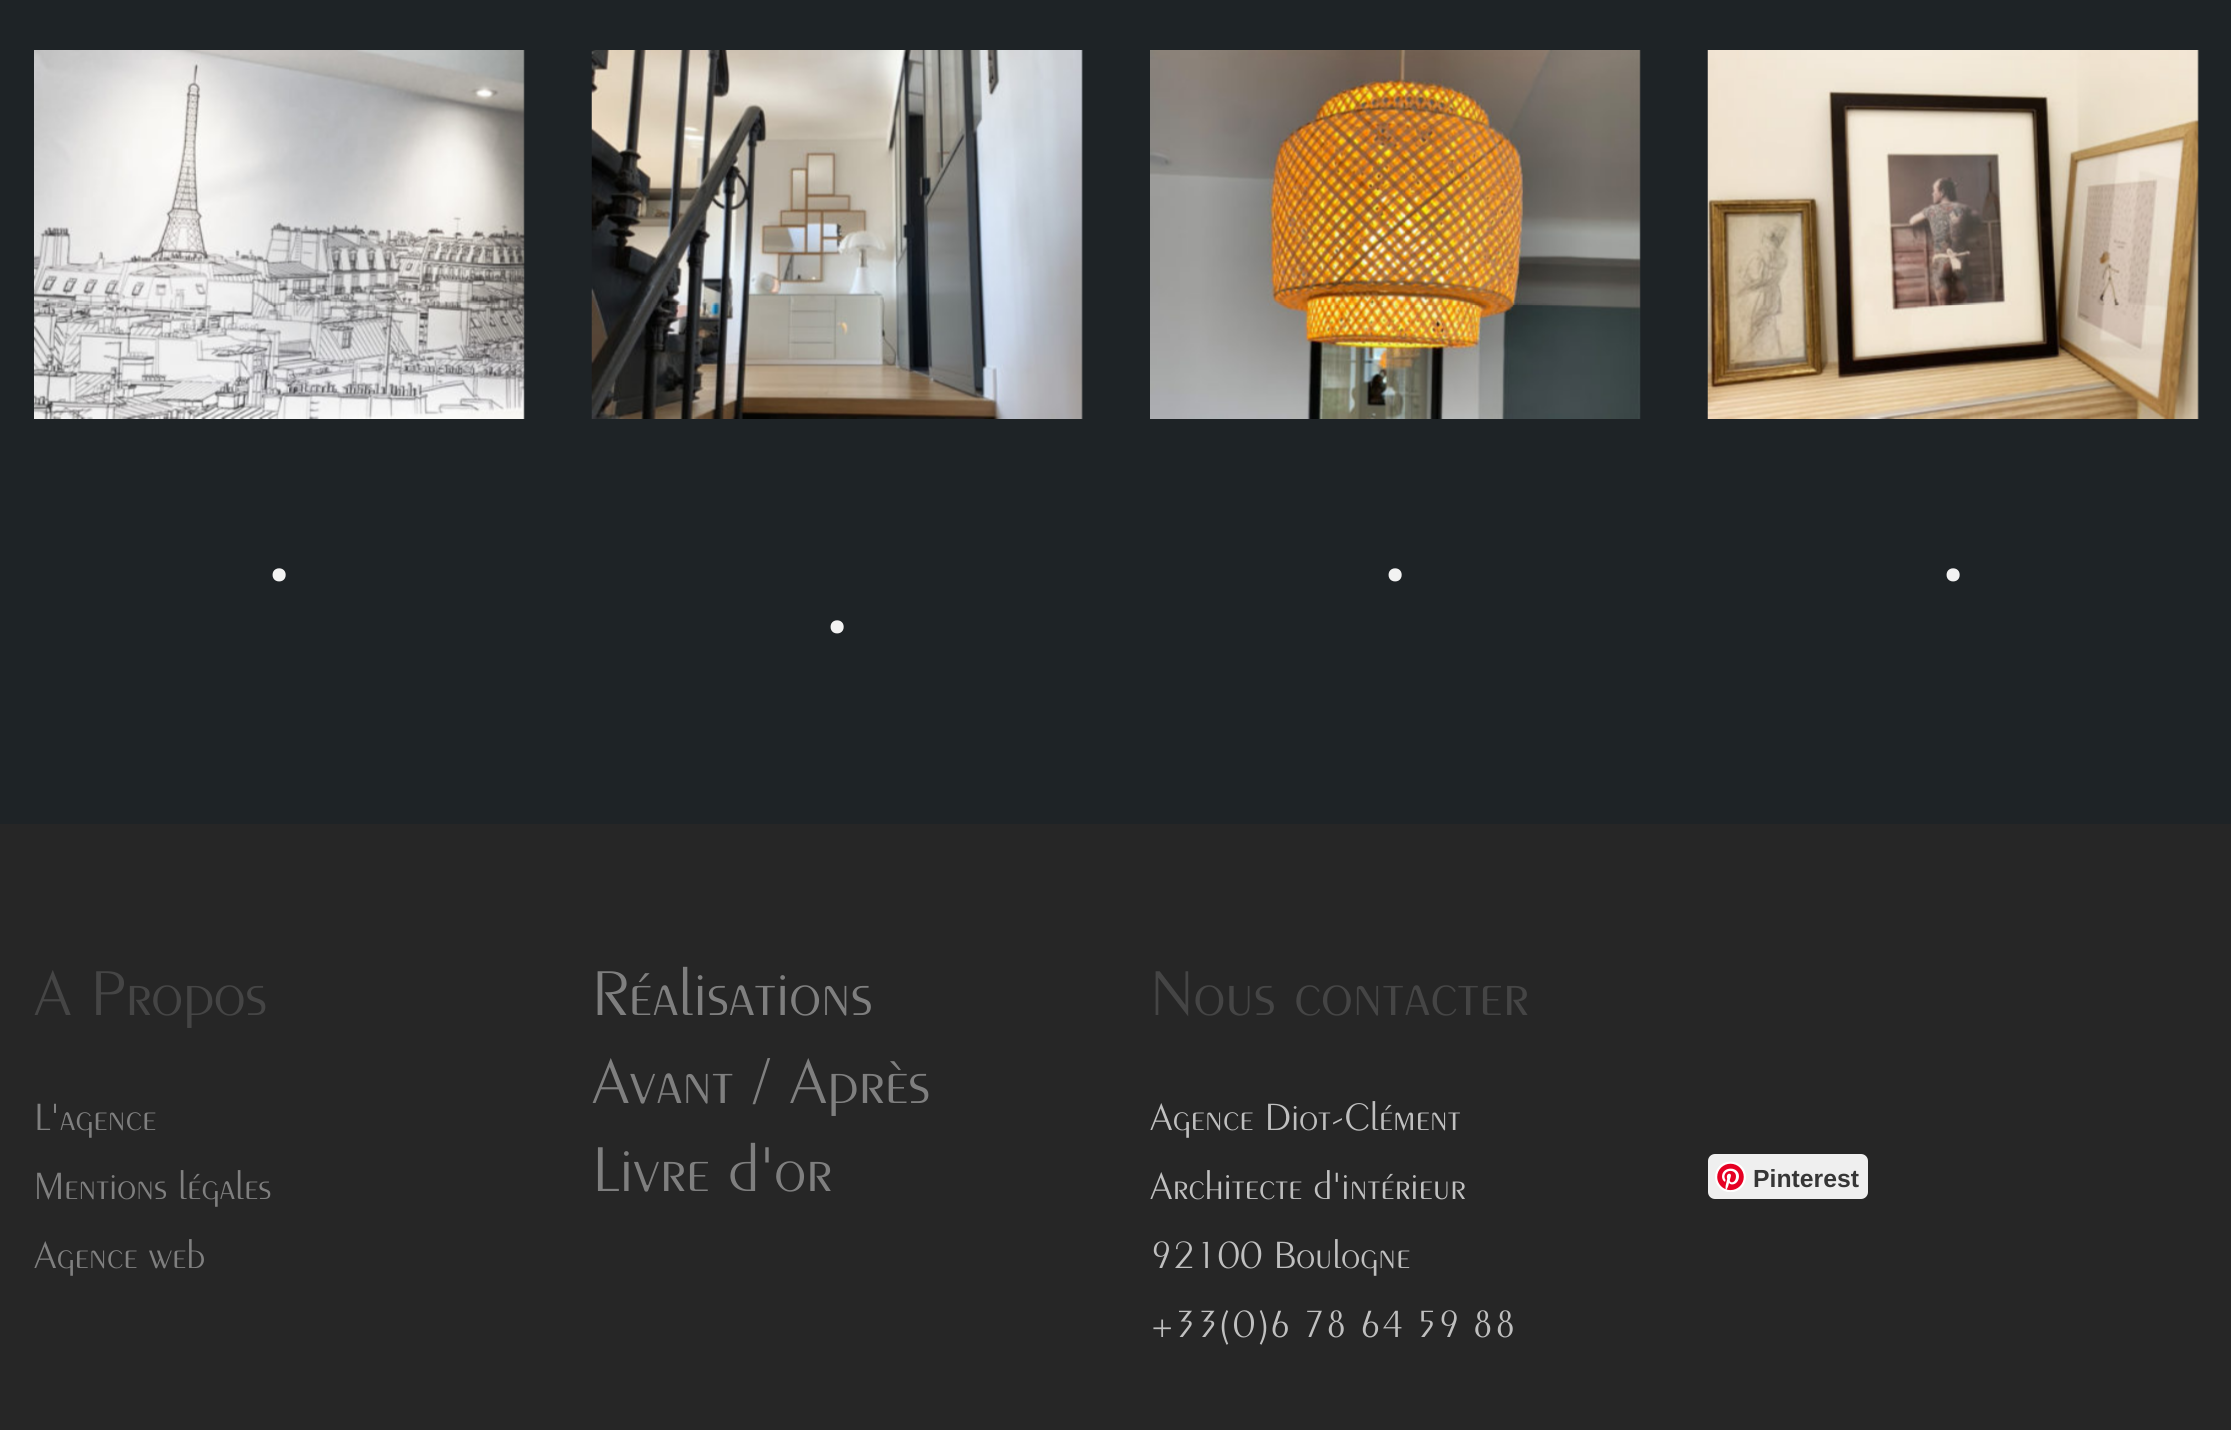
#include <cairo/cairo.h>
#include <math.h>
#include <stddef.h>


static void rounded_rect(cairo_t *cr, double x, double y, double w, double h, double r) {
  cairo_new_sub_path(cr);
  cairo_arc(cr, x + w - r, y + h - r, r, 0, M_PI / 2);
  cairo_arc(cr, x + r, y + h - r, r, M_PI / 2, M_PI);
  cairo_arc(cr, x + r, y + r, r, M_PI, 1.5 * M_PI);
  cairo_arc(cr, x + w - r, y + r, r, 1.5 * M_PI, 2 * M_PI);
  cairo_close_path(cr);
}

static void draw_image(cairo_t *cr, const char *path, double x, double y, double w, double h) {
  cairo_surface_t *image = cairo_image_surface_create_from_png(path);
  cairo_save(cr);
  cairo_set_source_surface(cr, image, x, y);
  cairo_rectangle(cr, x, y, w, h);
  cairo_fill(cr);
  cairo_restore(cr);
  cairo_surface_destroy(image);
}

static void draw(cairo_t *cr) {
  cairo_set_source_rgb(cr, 30 / 255.0, 35 / 255.0, 38 / 255.0);
  cairo_paint(cr);
  draw_image(cr, "images/1.png", 34, 50, 491, 369);
  draw_image(cr, "images/2.png", 1150, 50, 491, 369);
  draw_image(cr, "images/3.png", 1707, 50, 492, 369);
  draw_image(cr, "images/4.png", 591, 50, 492, 369);
  cairo_set_source_rgb(cr, 38 / 255.0, 38 / 255.0, 38 / 255.0);
  cairo_rectangle(cr, 0, 824, 2231, 606);
  cairo_fill(cr);
  cairo_set_source_rgb(cr, 239 / 255.0, 239 / 255.0, 239 / 255.0);
  rounded_rect(cr, 1708, 1154, 160, 45, 7);
  cairo_fill(cr);
  draw_image(cr, "images/5.png", 1715, 1161, 31, 31);
  cairo_select_font_face(cr, "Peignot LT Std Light", CAIRO_FONT_SLANT_NORMAL, CAIRO_FONT_WEIGHT_NORMAL);
  cairo_set_font_size(cr, 40.5);
  cairo_set_source_rgb(cr, 242 / 255.0, 242 / 255.0, 242 / 255.0);
  cairo_move_to(cr, 269, 588);
  cairo_show_text(cr, "•");
  cairo_move_to(cr, 1385, 588);
  cairo_show_text(cr, "•");
  cairo_move_to(cr, 1943, 588);
  cairo_show_text(cr, "•");
  cairo_move_to(cr, 827, 640);
  cairo_show_text(cr, "•");
  cairo_set_font_size(cr, 67.5);
  cairo_set_source_rgb(cr, 69 / 255.0, 69 / 255.0, 69 / 255.0);
  cairo_move_to(cr, 34, 1015);
  cairo_show_text(cr, "A Propos");
  cairo_set_font_size(cr, 40.5);
  cairo_set_source_rgb(cr, 127 / 255.0, 127 / 255.0, 127 / 255.0);
  cairo_move_to(cr, 34, 1130);
  cairo_show_text(cr, "L'agence");
  cairo_move_to(cr, 34, 1199);
  cairo_show_text(cr, "Mentions légales");
  cairo_move_to(cr, 34, 1268);
  cairo_show_text(cr, "Agence web");
  cairo_set_font_size(cr, 67.5);
  cairo_move_to(cr, 592, 1015);
  cairo_show_text(cr, "Réalisations");
  cairo_move_to(cr, 592, 1103);
  cairo_show_text(cr, "Avant / Après");
  cairo_move_to(cr, 592, 1191);
  cairo_show_text(cr, "Livre d'or");
  cairo_set_source_rgb(cr, 69 / 255.0, 69 / 255.0, 69 / 255.0);
  cairo_move_to(cr, 1150, 1015);
  cairo_show_text(cr, "Nous contacter");
  cairo_set_font_size(cr, 40.5);
  cairo_set_source_rgb(cr, 191 / 255.0, 191 / 255.0, 191 / 255.0);
  cairo_move_to(cr, 1150, 1130);
  cairo_show_text(cr, "Agence Diot-Clément");
  cairo_move_to(cr, 1150, 1199);
  cairo_show_text(cr, "Architecte d'intérieur");
  cairo_move_to(cr, 1150, 1268);
  cairo_show_text(cr, "92100 Boulogne");
  cairo_move_to(cr, 1150, 1337);
  cairo_show_text(cr, "+33(0)6 78 64 59 88");
  cairo_select_font_face(cr, "Liberation Sans", CAIRO_FONT_SLANT_NORMAL, CAIRO_FONT_WEIGHT_BOLD);
  cairo_set_font_size(cr, 24.75);
  cairo_set_source_rgb(cr, 54 / 255.0, 54 / 255.0, 54 / 255.0);
  cairo_move_to(cr, 1753, 1187);
  cairo_show_text(cr, "Pinterest");
}

int main(void) {
  cairo_surface_t *surface = cairo_image_surface_create(CAIRO_FORMAT_RGB24, 2231, 1430);
  cairo_t *cr = cairo_create(surface);
  cairo_font_options_t *options = cairo_font_options_create();
  cairo_font_options_set_hint_metrics(options, CAIRO_HINT_METRICS_OFF);
  cairo_font_options_set_hint_style(options, CAIRO_HINT_STYLE_NONE);
  cairo_set_font_options(cr, options);
  cairo_set_miter_limit(cr, 4);
  draw(cr);
  cairo_surface_write_to_png(surface, "out.png");
  cairo_font_options_destroy(options);
  cairo_destroy(cr);
  cairo_surface_destroy(surface);
  return 0;
}
